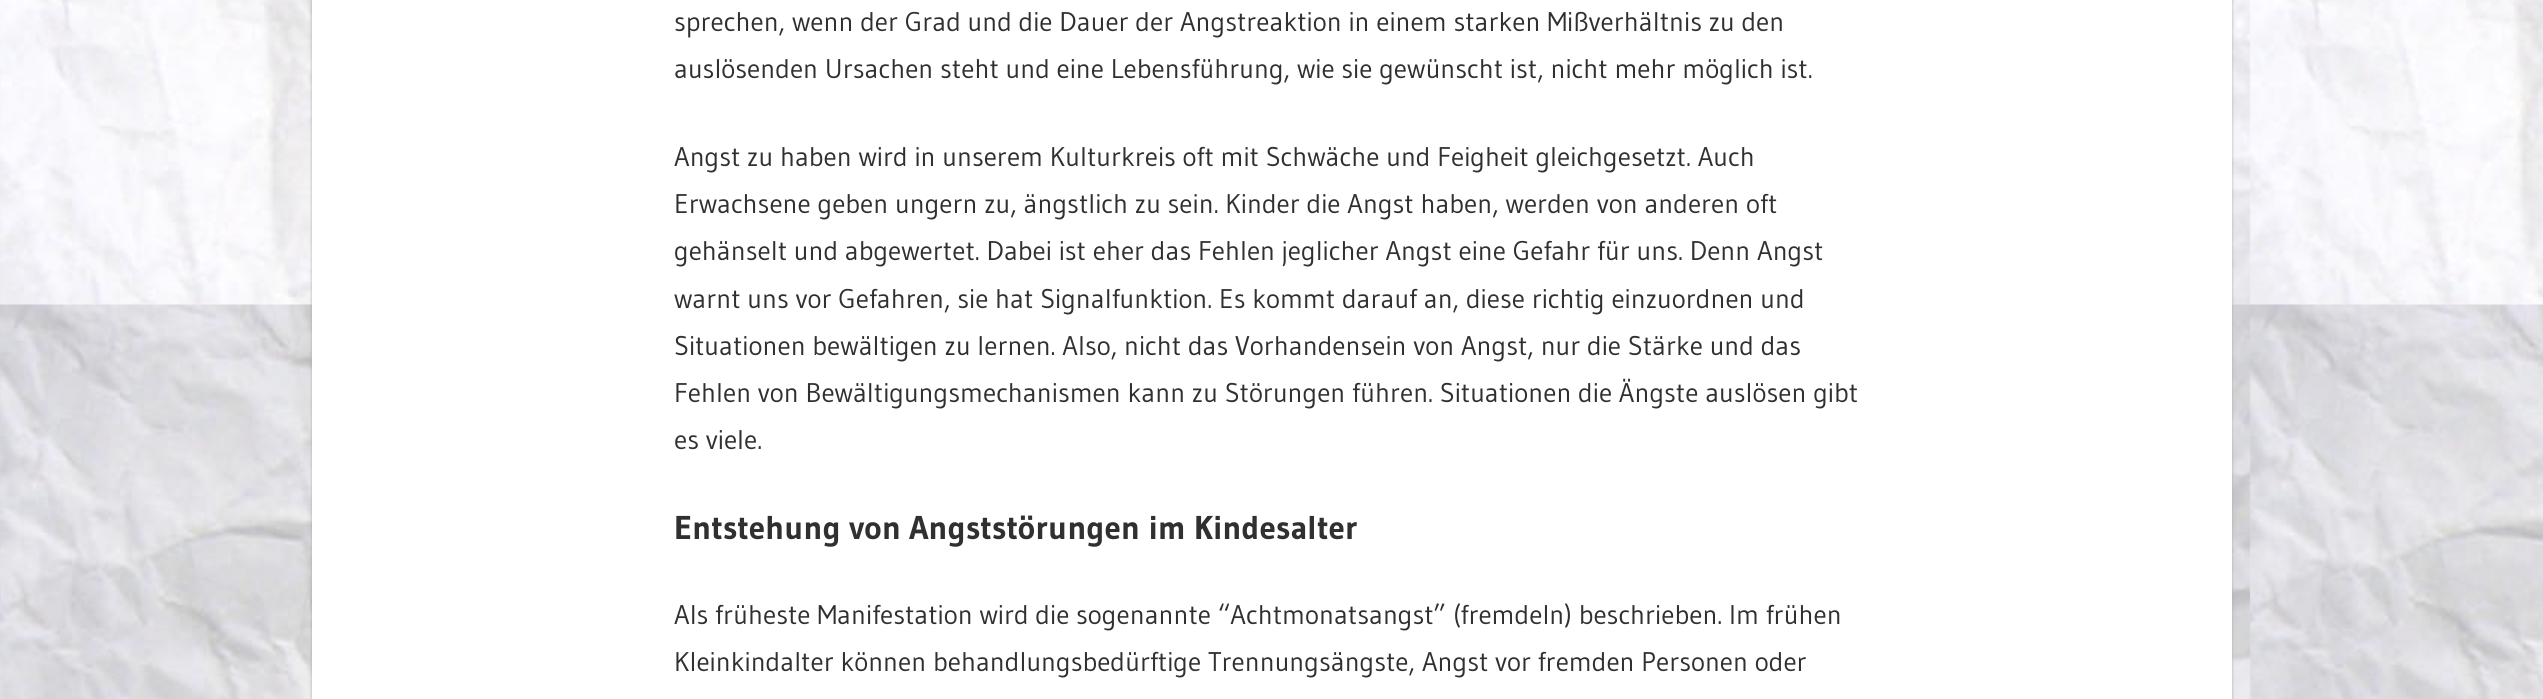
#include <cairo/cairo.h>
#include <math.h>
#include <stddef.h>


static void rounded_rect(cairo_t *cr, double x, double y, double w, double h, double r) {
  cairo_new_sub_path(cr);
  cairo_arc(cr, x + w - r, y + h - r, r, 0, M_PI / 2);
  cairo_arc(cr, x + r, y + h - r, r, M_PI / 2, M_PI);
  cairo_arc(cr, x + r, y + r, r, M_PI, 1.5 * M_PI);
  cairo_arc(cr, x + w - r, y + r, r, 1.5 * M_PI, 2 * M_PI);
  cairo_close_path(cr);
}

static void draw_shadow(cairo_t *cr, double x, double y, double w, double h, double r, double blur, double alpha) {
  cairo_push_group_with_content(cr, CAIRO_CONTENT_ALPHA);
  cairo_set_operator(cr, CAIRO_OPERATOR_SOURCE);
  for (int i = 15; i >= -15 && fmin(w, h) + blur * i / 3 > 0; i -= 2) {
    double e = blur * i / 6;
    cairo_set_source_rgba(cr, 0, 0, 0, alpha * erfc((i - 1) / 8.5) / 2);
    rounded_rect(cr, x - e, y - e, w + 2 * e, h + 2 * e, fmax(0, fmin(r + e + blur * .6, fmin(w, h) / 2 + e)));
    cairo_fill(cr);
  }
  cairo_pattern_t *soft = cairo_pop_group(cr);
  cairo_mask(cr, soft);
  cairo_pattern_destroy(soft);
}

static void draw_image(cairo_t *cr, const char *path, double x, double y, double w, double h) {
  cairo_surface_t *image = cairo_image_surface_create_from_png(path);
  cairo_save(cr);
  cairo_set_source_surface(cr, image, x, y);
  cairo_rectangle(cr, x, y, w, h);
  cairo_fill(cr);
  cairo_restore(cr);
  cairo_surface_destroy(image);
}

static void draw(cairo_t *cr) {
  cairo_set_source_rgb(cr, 1, 1, 1);
  cairo_paint(cr);
  draw_image(cr, "images/1.png", 0, 0, 2543, 699);
  cairo_set_source_rgb(cr, 170 / 255.0, 170 / 255.0, 170 / 255.0);
  draw_shadow(cr, 312, -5, 1920, 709, 0, 1.5, 1);
  cairo_set_source_rgb(cr, 1, 1, 1);
  cairo_rectangle(cr, 312, 0, 1920, 699);
  cairo_fill(cr);
  cairo_select_font_face(cr, "Gudea", CAIRO_FONT_SLANT_NORMAL, CAIRO_FONT_WEIGHT_NORMAL);
  cairo_set_font_size(cr, 27);
  cairo_set_source_rgb(cr, 48 / 255.0, 48 / 255.0, 48 / 255.0);
  cairo_move_to(cr, 674, 31);
  cairo_show_text(cr, "sprechen, wenn der Grad und die Dauer der Angstreaktion in einem starken Mißverhältnis zu den");
  cairo_move_to(cr, 674, 78);
  cairo_show_text(cr, "auslösenden Ursachen steht und eine Lebensführung, wie sie gewünscht ist, nicht mehr möglich ist.");
  cairo_move_to(cr, 674, 166);
  cairo_show_text(cr, "Angst zu haben wird in unserem Kulturkreis oft mit Schwäche und Feigheit gleichgesetzt. Auch");
  cairo_move_to(cr, 674, 213);
  cairo_show_text(cr, "Erwachsene geben ungern zu, ängstlich zu sein. Kinder die Angst haben, werden von anderen oft");
  cairo_move_to(cr, 674, 260);
  cairo_show_text(cr, "gehänselt und abgewertet. Dabei ist eher das Fehlen jeglicher Angst eine Gefahr für uns. Denn Angst");
  cairo_move_to(cr, 674, 308);
  cairo_show_text(cr, "warnt uns vor Gefahren, sie hat Signalfunktion. Es kommt darauf an, diese richtig einzuordnen und");
  cairo_move_to(cr, 674, 355);
  cairo_show_text(cr, "Situationen bewältigen zu lernen. Also, nicht das Vorhandensein von Angst, nur die Stärke und das");
  cairo_move_to(cr, 674, 402);
  cairo_show_text(cr, "Fehlen von Bewältigungsmechanismen kann zu Störungen führen. Situationen die Ängste auslösen gibt");
  cairo_move_to(cr, 674, 449);
  cairo_show_text(cr, "es viele.");
  cairo_select_font_face(cr, "Gudea", CAIRO_FONT_SLANT_NORMAL, CAIRO_FONT_WEIGHT_BOLD);
  cairo_set_font_size(cr, 33);
  cairo_move_to(cr, 674, 539);
  cairo_show_text(cr, "Entstehung von Angststörungen im Kindesalter");
  cairo_select_font_face(cr, "Gudea", CAIRO_FONT_SLANT_NORMAL, CAIRO_FONT_WEIGHT_NORMAL);
  cairo_set_font_size(cr, 27);
  cairo_move_to(cr, 674, 624);
  cairo_show_text(cr, "Als früheste Manifestation wird die sogenannte “Achtmonatsangst” (fremdeln) beschrieben. Im frühen");
  cairo_move_to(cr, 674, 671);
  cairo_show_text(cr, "Kleinkindalter können behandlungsbedürftige Trennungsängste, Angst vor fremden Personen oder");
}

int main(void) {
  cairo_surface_t *surface = cairo_image_surface_create(CAIRO_FORMAT_RGB24, 2543, 699);
  cairo_t *cr = cairo_create(surface);
  cairo_font_options_t *options = cairo_font_options_create();
  cairo_font_options_set_hint_metrics(options, CAIRO_HINT_METRICS_OFF);
  cairo_font_options_set_hint_style(options, CAIRO_HINT_STYLE_NONE);
  cairo_set_font_options(cr, options);
  cairo_set_miter_limit(cr, 4);
  draw(cr);
  cairo_surface_write_to_png(surface, "out.png");
  cairo_font_options_destroy(options);
  cairo_destroy(cr);
  cairo_surface_destroy(surface);
  return 0;
}
